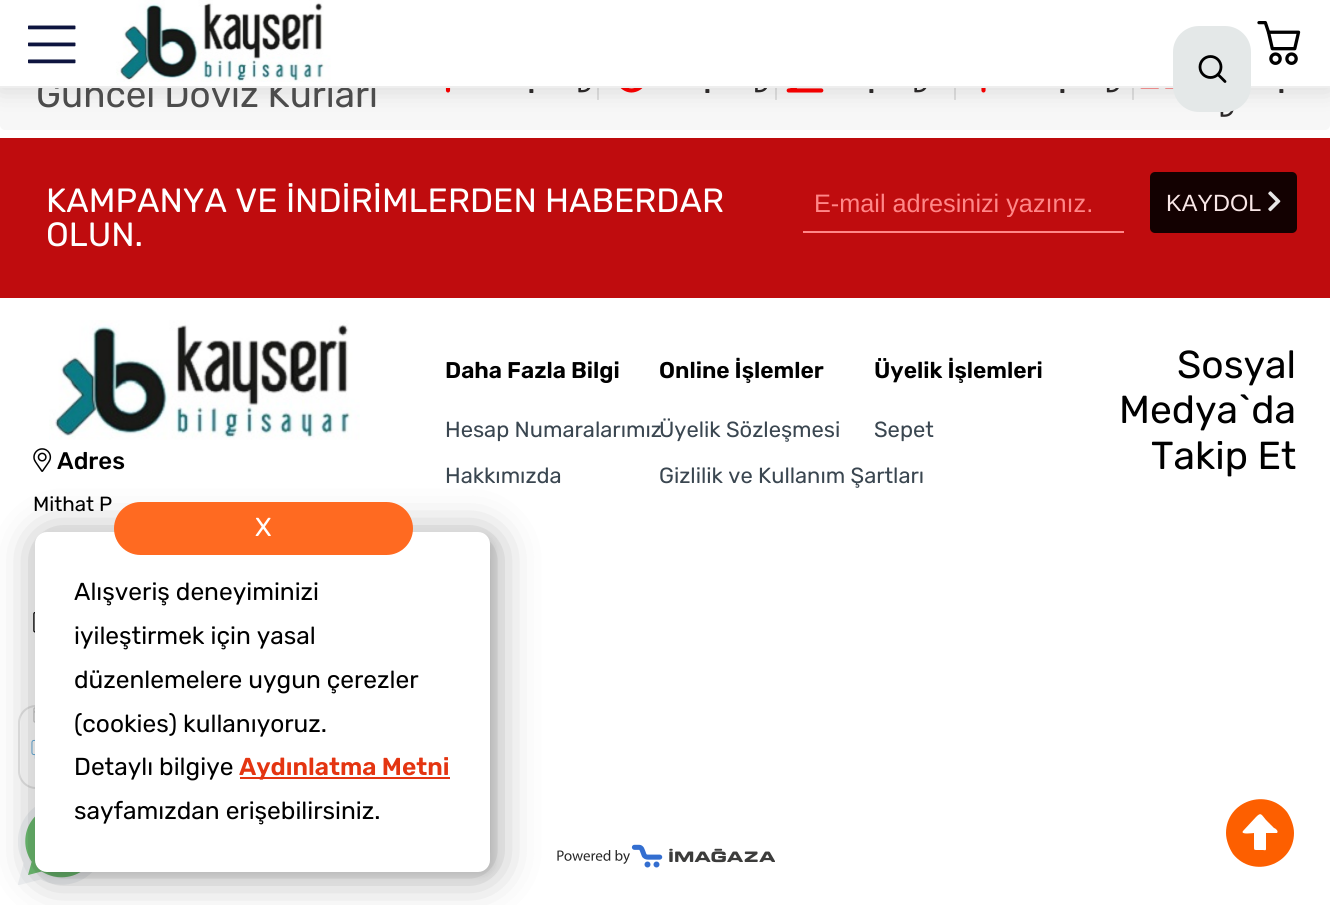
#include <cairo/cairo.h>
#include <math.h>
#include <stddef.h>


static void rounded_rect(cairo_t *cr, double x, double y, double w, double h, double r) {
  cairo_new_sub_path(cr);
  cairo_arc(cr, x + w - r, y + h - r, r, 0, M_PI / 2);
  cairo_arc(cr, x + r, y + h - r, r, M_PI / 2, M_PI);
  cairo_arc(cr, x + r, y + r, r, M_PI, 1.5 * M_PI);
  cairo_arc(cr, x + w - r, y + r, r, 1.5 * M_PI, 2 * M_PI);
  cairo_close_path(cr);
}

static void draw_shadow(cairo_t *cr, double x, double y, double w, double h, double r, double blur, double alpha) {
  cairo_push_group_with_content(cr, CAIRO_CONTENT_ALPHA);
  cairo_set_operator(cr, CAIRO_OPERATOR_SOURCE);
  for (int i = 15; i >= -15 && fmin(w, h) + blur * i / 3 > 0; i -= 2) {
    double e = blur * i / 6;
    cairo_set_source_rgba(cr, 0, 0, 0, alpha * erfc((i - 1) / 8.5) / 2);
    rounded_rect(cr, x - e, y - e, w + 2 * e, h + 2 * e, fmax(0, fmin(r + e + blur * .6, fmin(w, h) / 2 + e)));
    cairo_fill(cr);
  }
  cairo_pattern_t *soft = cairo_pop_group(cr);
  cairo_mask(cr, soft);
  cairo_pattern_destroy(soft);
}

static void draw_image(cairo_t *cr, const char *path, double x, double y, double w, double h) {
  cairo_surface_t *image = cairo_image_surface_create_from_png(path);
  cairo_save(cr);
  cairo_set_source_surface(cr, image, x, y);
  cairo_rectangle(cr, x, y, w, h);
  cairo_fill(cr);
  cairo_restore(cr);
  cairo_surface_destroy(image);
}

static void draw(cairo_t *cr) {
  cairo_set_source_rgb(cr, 1, 1, 1);
  cairo_paint(cr);
  cairo_set_source_rgb(cr, 247 / 255.0, 247 / 255.0, 247 / 255.0);
  rounded_rect(cr, 0, 18, 1330, 112, 5);
  cairo_fill(cr);
  draw_image(cr, "images/4.png", 445, 88, 6, 5);
  draw_image(cr, "images/5.png", 578, 88, 13, 5);
  cairo_set_source_rgb(cr, 221 / 255.0, 221 / 255.0, 221 / 255.0);
  cairo_rectangle(cr, 597, 88, 2, 12);
  cairo_fill(cr);
  draw_image(cr, "images/6.png", 620, 88, 23, 5);
  draw_image(cr, "images/7.png", 755, 88, 12, 5);
  cairo_rectangle(cr, 775, 88, 2, 12);
  cairo_fill(cr);
  draw_image(cr, "images/8.png", 786, 88, 38, 5);
  draw_image(cr, "images/5.png", 914, 88, 13, 5);
  cairo_rectangle(cr, 954, 88, 2, 12);
  cairo_fill(cr);
  draw_image(cr, "images/9.png", 981, 88, 5, 5);
  draw_image(cr, "images/10.png", 1106, 88, 13, 5);
  cairo_rectangle(cr, 1132, 88, 2, 12);
  cairo_fill(cr);
  draw_image(cr, "images/11.png", 1140, 88, 34, 1);
  draw_image(cr, "images/12.png", 1220, 110, 14, 7);
  cairo_set_source_rgb(cr, 0, 0, 0);
  draw_shadow(cr, 0, 0, 1330, 88, 0, 13, 0.14);
  cairo_set_source_rgb(cr, 191 / 255.0, 12 / 255.0, 14 / 255.0);
  cairo_rectangle(cr, 0, 138, 1330, 160);
  cairo_fill(cr);
  cairo_set_source_rgb(cr, 1, 135 / 255.0, 136 / 255.0);
  cairo_rectangle(cr, 803, 231, 321, 2);
  cairo_fill(cr);
  cairo_set_source_rgb(cr, 19 / 255.0, 1 / 255.0, 1 / 255.0);
  rounded_rect(cr, 1150, 172, 147, 61, 5);
  cairo_fill(cr);
  draw_image(cr, "images/13.png", 1268, 191, 13, 21);
  draw_image(cr, "images/14.png", 49, 320, 311, 120);
  draw_image(cr, "images/15.png", 33, 448, 19, 24);
  draw_image(cr, "images/16.png", 33, 612, 2, 21);
  draw_image(cr, "images/17.png", 33, 707, 2, 16);
  cairo_set_source_rgba(cr, 1, 1, 1, 0.8);
  rounded_rect(cr, 18, 705, 218, 84, 18);
  cairo_fill(cr);
  rounded_rect(cr, 19, 706, 216, 82, 17);
  cairo_set_source_rgba(cr, 221 / 255.0, 221 / 255.0, 221 / 255.0, 0.8);
  cairo_stroke(cr);
  draw_image(cr, "images/18.png", 31, 739, 4, 20);
  draw_image(cr, "images/19.png", 18, 807, 75, 78);
  cairo_set_source_rgb(cr, 0, 0, 0);
  draw_shadow(cr, 39, 536, 455, 339, 12, 22, 0.37);
  draw_shadow(cr, 39, 536, 455, 339, 12, 4.5, 0.12);
  cairo_set_source_rgb(cr, 1, 1, 1);
  rounded_rect(cr, 37, 534, 451, 336, 10);
  cairo_fill_preserve(cr);
  cairo_set_line_width(cr, 4);
  cairo_stroke(cr);
  cairo_set_source_rgb(cr, 1, 106 / 255.0, 33 / 255.0);
  rounded_rect(cr, 114, 502, 299, 53, 26.5);
  cairo_fill(cr);
  cairo_set_source_rgb(cr, 228 / 255.0, 53 / 255.0, 17 / 255.0);
  cairo_rectangle(cr, 240, 777, 210, 2);
  cairo_fill(cr);
  draw_image(cr, "images/20.png", 557, 844, 218, 24);
  cairo_set_source_rgb(cr, 253 / 255.0, 95 / 255.0, 0);
  cairo_new_path(cr);
  cairo_move_to(cr, 1226, 833);
  cairo_curve_to(cr, 1226, 801, 1267, 787, 1287, 812);
  cairo_curve_to(cr, 1291, 818, 1294, 826, 1294, 833);
  cairo_curve_to(cr, 1294, 865, 1253, 879, 1233, 854);
  cairo_curve_to(cr, 1229, 848, 1226, 840, 1226, 833);
  cairo_close_path(cr);
  cairo_move_to(cr, 1266, 849);
  cairo_line_to(cr, 1266, 833);
  cairo_line_to(cr, 1277, 833);
  cairo_curve_to(cr, 1279, 831, 1275, 828, 1274, 828);
  cairo_line_to(cr, 1266, 820);
  cairo_curve_to(cr, 1261, 814, 1261, 812, 1256, 817);
  cairo_line_to(cr, 1243, 831);
  cairo_curve_to(cr, 1240, 835, 1253, 833, 1254, 833);
  cairo_line_to(cr, 1254, 846);
  cairo_curve_to(cr, 1254, 850, 1254, 850, 1257, 850);
  cairo_line_to(cr, 1263, 850);
  cairo_curve_to(cr, 1264, 850, 1266, 851, 1266, 849);
  cairo_close_path(cr);
  cairo_fill(cr);
  cairo_select_font_face(cr, "Rubik", CAIRO_FONT_SLANT_NORMAL, CAIRO_FONT_WEIGHT_NORMAL);
  cairo_set_font_size(cr, 36.75);
  cairo_set_source_rgb(cr, 76 / 255.0, 76 / 255.0, 76 / 255.0);
  cairo_move_to(cr, 36, 107);
  cairo_show_text(cr, "Güncel Döviz Kurları");
  cairo_set_source_rgb(cr, 1, 1, 1);
  cairo_rectangle(cr, 0, 0, 1330, 86);
  cairo_fill(cr);
  draw_image(cr, "images/3.png", 28, 25, 48, 39);
  cairo_set_source_rgb(cr, 238 / 255.0, 238 / 255.0, 238 / 255.0);
  cairo_rectangle(cr, 0, 86, 1330, 2);
  cairo_fill(cr);
  cairo_set_source_rgb(cr, 228 / 255.0, 232 / 255.0, 232 / 255.0);
  rounded_rect(cr, 1173, 26, 78, 86, 26);
  cairo_fill(cr);
  cairo_arc(cr, 1210.5, 67, 10.5, 0, 2 * M_PI);
  cairo_set_source_rgb(cr, 0, 0, 0);
  cairo_set_line_width(cr, 2.8);
  cairo_stroke(cr);
  cairo_new_path(cr);
  cairo_move_to(cr, 1225, 81.5);
  cairo_line_to(cr, 1218, 74.5);
  cairo_set_line_cap(cr, CAIRO_LINE_CAP_ROUND);
  cairo_set_line_join(cr, CAIRO_LINE_JOIN_ROUND);
  cairo_stroke(cr);
  draw_image(cr, "images/2.png", 1257, 21, 44, 44);
  draw_image(cr, "images/1.png", 116, 0, 215, 82);
  cairo_select_font_face(cr, "Rubik SemiBold", CAIRO_FONT_SLANT_NORMAL, CAIRO_FONT_WEIGHT_NORMAL);
  cairo_set_font_size(cr, 24.5);
  cairo_set_source_rgb(cr, 45 / 255.0, 42 / 255.0, 42 / 255.0);
  cairo_move_to(cr, 528, 93);
  cairo_show_text(cr, ".");
  cairo_move_to(cr, 704, 93);
  cairo_show_text(cr, ".");
  cairo_move_to(cr, 868, 93);
  cairo_show_text(cr, ".");
  cairo_move_to(cr, 1059, 93);
  cairo_show_text(cr, ".");
  cairo_move_to(cr, 1278, 93);
  cairo_show_text(cr, ".");
  cairo_select_font_face(cr, "Rubik", CAIRO_FONT_SLANT_NORMAL, CAIRO_FONT_WEIGHT_NORMAL);
  cairo_set_font_size(cr, 33.6);
  cairo_set_source_rgb(cr, 1, 1, 1);
  cairo_move_to(cr, 46, 212);
  cairo_show_text(cr, "KAMPANYA VE İNDİRİMLERDEN HABERDAR");
  cairo_move_to(cr, 46, 246);
  cairo_show_text(cr, "OLUN.");
  cairo_save(cr);
  cairo_rectangle(cr, 814, 189, 299, 28);
  cairo_clip(cr);
  cairo_select_font_face(cr, "Liberation Sans", CAIRO_FONT_SLANT_NORMAL, CAIRO_FONT_WEIGHT_NORMAL);
  cairo_set_font_size(cr, 25.25);
  cairo_set_source_rgb(cr, 1, 135 / 255.0, 136 / 255.0);
  cairo_move_to(cr, 814, 212);
  cairo_show_text(cr, "E-mail adresinizi yazınız.");
  cairo_restore(cr);
  cairo_select_font_face(cr, "Liberation Sans", CAIRO_FONT_SLANT_NORMAL, CAIRO_FONT_WEIGHT_NORMAL);
  cairo_set_font_size(cr, 23.5);
  cairo_set_source_rgb(cr, 249 / 255.0, 231 / 255.0, 231 / 255.0);
  cairo_move_to(cr, 1166, 211);
  cairo_show_text(cr, "KAYDOL");
  cairo_select_font_face(cr, "Rubik Medium", CAIRO_FONT_SLANT_NORMAL, CAIRO_FONT_WEIGHT_NORMAL);
  cairo_set_font_size(cr, 24);
  cairo_set_source_rgb(cr, 0, 0, 0);
  cairo_move_to(cr, 57, 469);
  cairo_show_text(cr, "Adres");
  cairo_select_font_face(cr, "Rubik", CAIRO_FONT_SLANT_NORMAL, CAIRO_FONT_WEIGHT_NORMAL);
  cairo_set_font_size(cr, 20.5);
  cairo_move_to(cr, 33, 511);
  cairo_show_text(cr, "Mithat P");
  cairo_select_font_face(cr, "Rubik SemiBold", CAIRO_FONT_SLANT_NORMAL, CAIRO_FONT_WEIGHT_NORMAL);
  cairo_set_font_size(cr, 22.75);
  cairo_move_to(cr, 445, 378);
  cairo_show_text(cr, "Daha Fazla Bilgi");
  cairo_select_font_face(cr, "Rubik", CAIRO_FONT_SLANT_NORMAL, CAIRO_FONT_WEIGHT_NORMAL);
  cairo_set_font_size(cr, 21.9);
  cairo_set_source_rgb(cr, 58 / 255.0, 70 / 255.0, 80 / 255.0);
  cairo_move_to(cr, 445, 437);
  cairo_show_text(cr, "Hesap Numaralarımız");
  cairo_move_to(cr, 445, 483);
  cairo_show_text(cr, "Hakkımızda");
  cairo_select_font_face(cr, "Rubik SemiBold", CAIRO_FONT_SLANT_NORMAL, CAIRO_FONT_WEIGHT_NORMAL);
  cairo_set_font_size(cr, 22.75);
  cairo_set_source_rgb(cr, 0, 0, 0);
  cairo_move_to(cr, 659, 378);
  cairo_show_text(cr, "Online İşlemler");
  cairo_select_font_face(cr, "Rubik", CAIRO_FONT_SLANT_NORMAL, CAIRO_FONT_WEIGHT_NORMAL);
  cairo_set_font_size(cr, 21.9);
  cairo_set_source_rgb(cr, 58 / 255.0, 70 / 255.0, 80 / 255.0);
  cairo_move_to(cr, 659, 437);
  cairo_show_text(cr, "Üyelik Sözleşmesi");
  cairo_move_to(cr, 659, 483);
  cairo_show_text(cr, "Gizlilik ve Kullanım Şartları");
  cairo_select_font_face(cr, "Rubik SemiBold", CAIRO_FONT_SLANT_NORMAL, CAIRO_FONT_WEIGHT_NORMAL);
  cairo_set_font_size(cr, 22.75);
  cairo_set_source_rgb(cr, 0, 0, 0);
  cairo_move_to(cr, 874, 378);
  cairo_show_text(cr, "Üyelik İşlemleri");
  cairo_select_font_face(cr, "Rubik", CAIRO_FONT_SLANT_NORMAL, CAIRO_FONT_WEIGHT_NORMAL);
  cairo_set_font_size(cr, 21.9);
  cairo_set_source_rgb(cr, 58 / 255.0, 70 / 255.0, 80 / 255.0);
  cairo_move_to(cr, 874, 437);
  cairo_show_text(cr, "Sepet");
  cairo_set_font_size(cr, 39);
  cairo_set_source_rgb(cr, 0, 0, 0);
  cairo_move_to(cr, 1177, 378);
  cairo_show_text(cr, "Sosyal");
  cairo_move_to(cr, 1119, 423);
  cairo_show_text(cr, "Medya`da");
  cairo_move_to(cr, 1151, 469);
  cairo_show_text(cr, "Takip Et");
  cairo_set_font_size(cr, 26);
  cairo_set_source_rgb(cr, 1, 1, 1);
  cairo_move_to(cr, 255, 536);
  cairo_show_text(cr, "X");
  cairo_set_font_size(cr, 24.5);
  cairo_set_source_rgb(cr, 0, 0, 0);
  cairo_move_to(cr, 74, 600);
  cairo_show_text(cr, "Alışveriş deneyiminizi");
  cairo_move_to(cr, 74, 644);
  cairo_show_text(cr, "iyileştirmek için yasal");
  cairo_move_to(cr, 74, 688);
  cairo_show_text(cr, "düzenlemelere uygun çerezler");
  cairo_move_to(cr, 74, 732);
  cairo_show_text(cr, "(cookies) kullanıyoruz.");
  cairo_move_to(cr, 74, 775);
  cairo_show_text(cr, "Detaylı bilgiye");
  cairo_select_font_face(cr, "Rubik SemiBold", CAIRO_FONT_SLANT_NORMAL, CAIRO_FONT_WEIGHT_NORMAL);
  cairo_set_source_rgb(cr, 228 / 255.0, 53 / 255.0, 17 / 255.0);
  cairo_move_to(cr, 239, 775);
  cairo_show_text(cr, "Aydınlatma Metni");
  cairo_select_font_face(cr, "Rubik", CAIRO_FONT_SLANT_NORMAL, CAIRO_FONT_WEIGHT_NORMAL);
  cairo_set_source_rgb(cr, 0, 0, 0);
  cairo_move_to(cr, 74, 819);
  cairo_show_text(cr, "sayfamızdan erişebilirsiniz.");
}

int main(void) {
  cairo_surface_t *surface = cairo_image_surface_create(CAIRO_FORMAT_RGB24, 1330, 905);
  cairo_t *cr = cairo_create(surface);
  cairo_font_options_t *options = cairo_font_options_create();
  cairo_font_options_set_hint_metrics(options, CAIRO_HINT_METRICS_OFF);
  cairo_font_options_set_hint_style(options, CAIRO_HINT_STYLE_NONE);
  cairo_set_font_options(cr, options);
  cairo_set_miter_limit(cr, 4);
  draw(cr);
  cairo_surface_write_to_png(surface, "out.png");
  cairo_font_options_destroy(options);
  cairo_destroy(cr);
  cairo_surface_destroy(surface);
  return 0;
}
